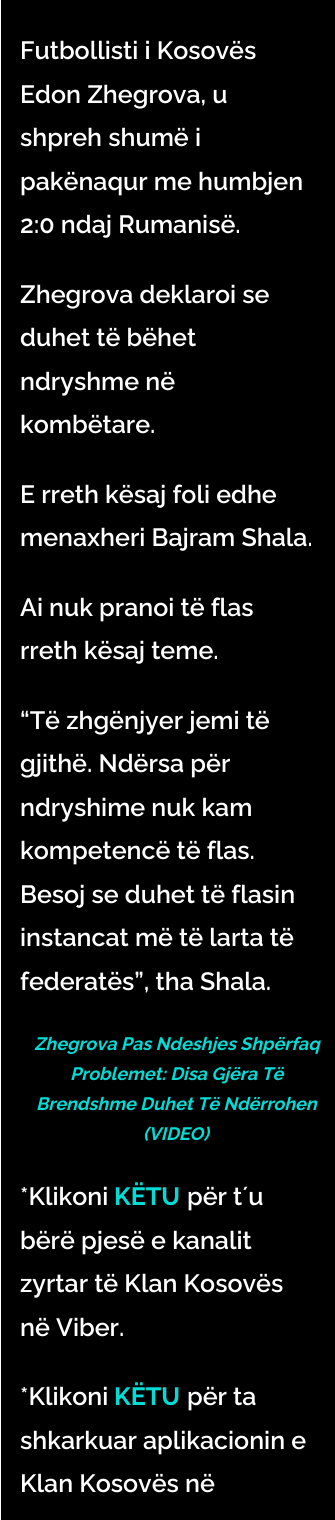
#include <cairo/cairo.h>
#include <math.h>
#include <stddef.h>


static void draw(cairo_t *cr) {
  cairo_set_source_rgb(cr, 1, 1, 1);
  cairo_paint(cr);
  cairo_set_source_rgb(cr, 0, 0, 0);
  cairo_rectangle(cr, 1, 0, 334, 1520);
  cairo_fill(cr);
  cairo_select_font_face(cr, "Raleway SemiBold", CAIRO_FONT_SLANT_NORMAL, CAIRO_FONT_WEIGHT_NORMAL);
  cairo_set_font_size(cr, 25);
  cairo_set_source_rgb(cr, 1, 1, 1);
  cairo_move_to(cr, 20, 59);
  cairo_show_text(cr, "Futbollisti i Kosovës");
  cairo_move_to(cr, 20, 103);
  cairo_show_text(cr, "Edon Zhegrova, u");
  cairo_move_to(cr, 20, 146);
  cairo_show_text(cr, "shpreh shumë i");
  cairo_move_to(cr, 20, 190);
  cairo_show_text(cr, "pakënaqur me humbjen");
  cairo_move_to(cr, 20, 233);
  cairo_show_text(cr, "2:0 ndaj Rumanisë.");
  cairo_move_to(cr, 20, 303);
  cairo_show_text(cr, "Zhegrova deklaroi se");
  cairo_move_to(cr, 20, 346);
  cairo_show_text(cr, "duhet të bëhet");
  cairo_move_to(cr, 20, 390);
  cairo_show_text(cr, "ndryshme në");
  cairo_move_to(cr, 20, 433);
  cairo_show_text(cr, "kombëtare.");
  cairo_move_to(cr, 20, 503);
  cairo_show_text(cr, "E rreth kësaj foli edhe");
  cairo_move_to(cr, 20, 546);
  cairo_show_text(cr, "menaxheri Bajram Shala.");
  cairo_move_to(cr, 20, 616);
  cairo_show_text(cr, "Ai nuk pranoi të flas");
  cairo_move_to(cr, 20, 659);
  cairo_show_text(cr, "rreth kësaj teme.");
  cairo_move_to(cr, 20, 729);
  cairo_show_text(cr, "“Të zhgënjyer jemi të");
  cairo_move_to(cr, 20, 772);
  cairo_show_text(cr, "gjithë. Ndërsa për");
  cairo_move_to(cr, 20, 816);
  cairo_show_text(cr, "ndryshime nuk kam");
  cairo_move_to(cr, 20, 859);
  cairo_show_text(cr, "kompetencë të flas.");
  cairo_move_to(cr, 20, 903);
  cairo_show_text(cr, "Besoj se duhet të flasin");
  cairo_move_to(cr, 20, 946);
  cairo_show_text(cr, "instancat më të larta të");
  cairo_move_to(cr, 20, 990);
  cairo_show_text(cr, "federatës”, tha Shala.");
  cairo_select_font_face(cr, "Raleway", CAIRO_FONT_SLANT_ITALIC, CAIRO_FONT_WEIGHT_BOLD);
  cairo_set_font_size(cr, 18);
  cairo_set_source_rgb(cr, 0, 221 / 255.0, 214 / 255.0);
  cairo_move_to(cr, 34, 1050);
  cairo_show_text(cr, "Zhegrova Pas Ndeshjes Shpërfaq");
  cairo_move_to(cr, 70, 1080);
  cairo_show_text(cr, "Problemet: Disa Gjëra Të");
  cairo_move_to(cr, 36, 1110);
  cairo_show_text(cr, "Brendshme Duhet Të Ndërrohen");
  cairo_move_to(cr, 143, 1140);
  cairo_show_text(cr, "(VIDEO)");
  cairo_select_font_face(cr, "Raleway SemiBold", CAIRO_FONT_SLANT_NORMAL, CAIRO_FONT_WEIGHT_NORMAL);
  cairo_set_font_size(cr, 25);
  cairo_set_source_rgb(cr, 1, 1, 1);
  cairo_move_to(cr, 20, 1205);
  cairo_show_text(cr, "*Klikoni");
  cairo_select_font_face(cr, "Raleway", CAIRO_FONT_SLANT_NORMAL, CAIRO_FONT_WEIGHT_BOLD);
  cairo_set_source_rgb(cr, 0, 221 / 255.0, 214 / 255.0);
  cairo_move_to(cr, 114, 1205);
  cairo_show_text(cr, "KËTU");
  cairo_select_font_face(cr, "Raleway SemiBold", CAIRO_FONT_SLANT_NORMAL, CAIRO_FONT_WEIGHT_NORMAL);
  cairo_set_source_rgb(cr, 1, 1, 1);
  cairo_move_to(cr, 187, 1205);
  cairo_show_text(cr, "për t´u");
  cairo_move_to(cr, 20, 1249);
  cairo_show_text(cr, "bërë pjesë e kanalit");
  cairo_move_to(cr, 20, 1292);
  cairo_show_text(cr, "zyrtar të Klan Kosovës");
  cairo_move_to(cr, 20, 1336);
  cairo_show_text(cr, "në Viber.");
  cairo_move_to(cr, 20, 1405);
  cairo_show_text(cr, "*Klikoni");
  cairo_select_font_face(cr, "Raleway", CAIRO_FONT_SLANT_NORMAL, CAIRO_FONT_WEIGHT_BOLD);
  cairo_set_source_rgb(cr, 0, 221 / 255.0, 214 / 255.0);
  cairo_move_to(cr, 114, 1405);
  cairo_show_text(cr, "KËTU");
  cairo_select_font_face(cr, "Raleway SemiBold", CAIRO_FONT_SLANT_NORMAL, CAIRO_FONT_WEIGHT_NORMAL);
  cairo_set_source_rgb(cr, 1, 1, 1);
  cairo_move_to(cr, 187, 1405);
  cairo_show_text(cr, "për ta");
  cairo_move_to(cr, 20, 1449);
  cairo_show_text(cr, "shkarkuar aplikacionin e");
  cairo_move_to(cr, 20, 1492);
  cairo_show_text(cr, "Klan Kosovës në");
}

int main(void) {
  cairo_surface_t *surface = cairo_image_surface_create(CAIRO_FORMAT_RGB24, 335, 1520);
  cairo_t *cr = cairo_create(surface);
  cairo_font_options_t *options = cairo_font_options_create();
  cairo_font_options_set_hint_metrics(options, CAIRO_HINT_METRICS_OFF);
  cairo_font_options_set_hint_style(options, CAIRO_HINT_STYLE_NONE);
  cairo_set_font_options(cr, options);
  cairo_set_miter_limit(cr, 4);
  draw(cr);
  cairo_surface_write_to_png(surface, "out.png");
  cairo_font_options_destroy(options);
  cairo_destroy(cr);
  cairo_surface_destroy(surface);
  return 0;
}
